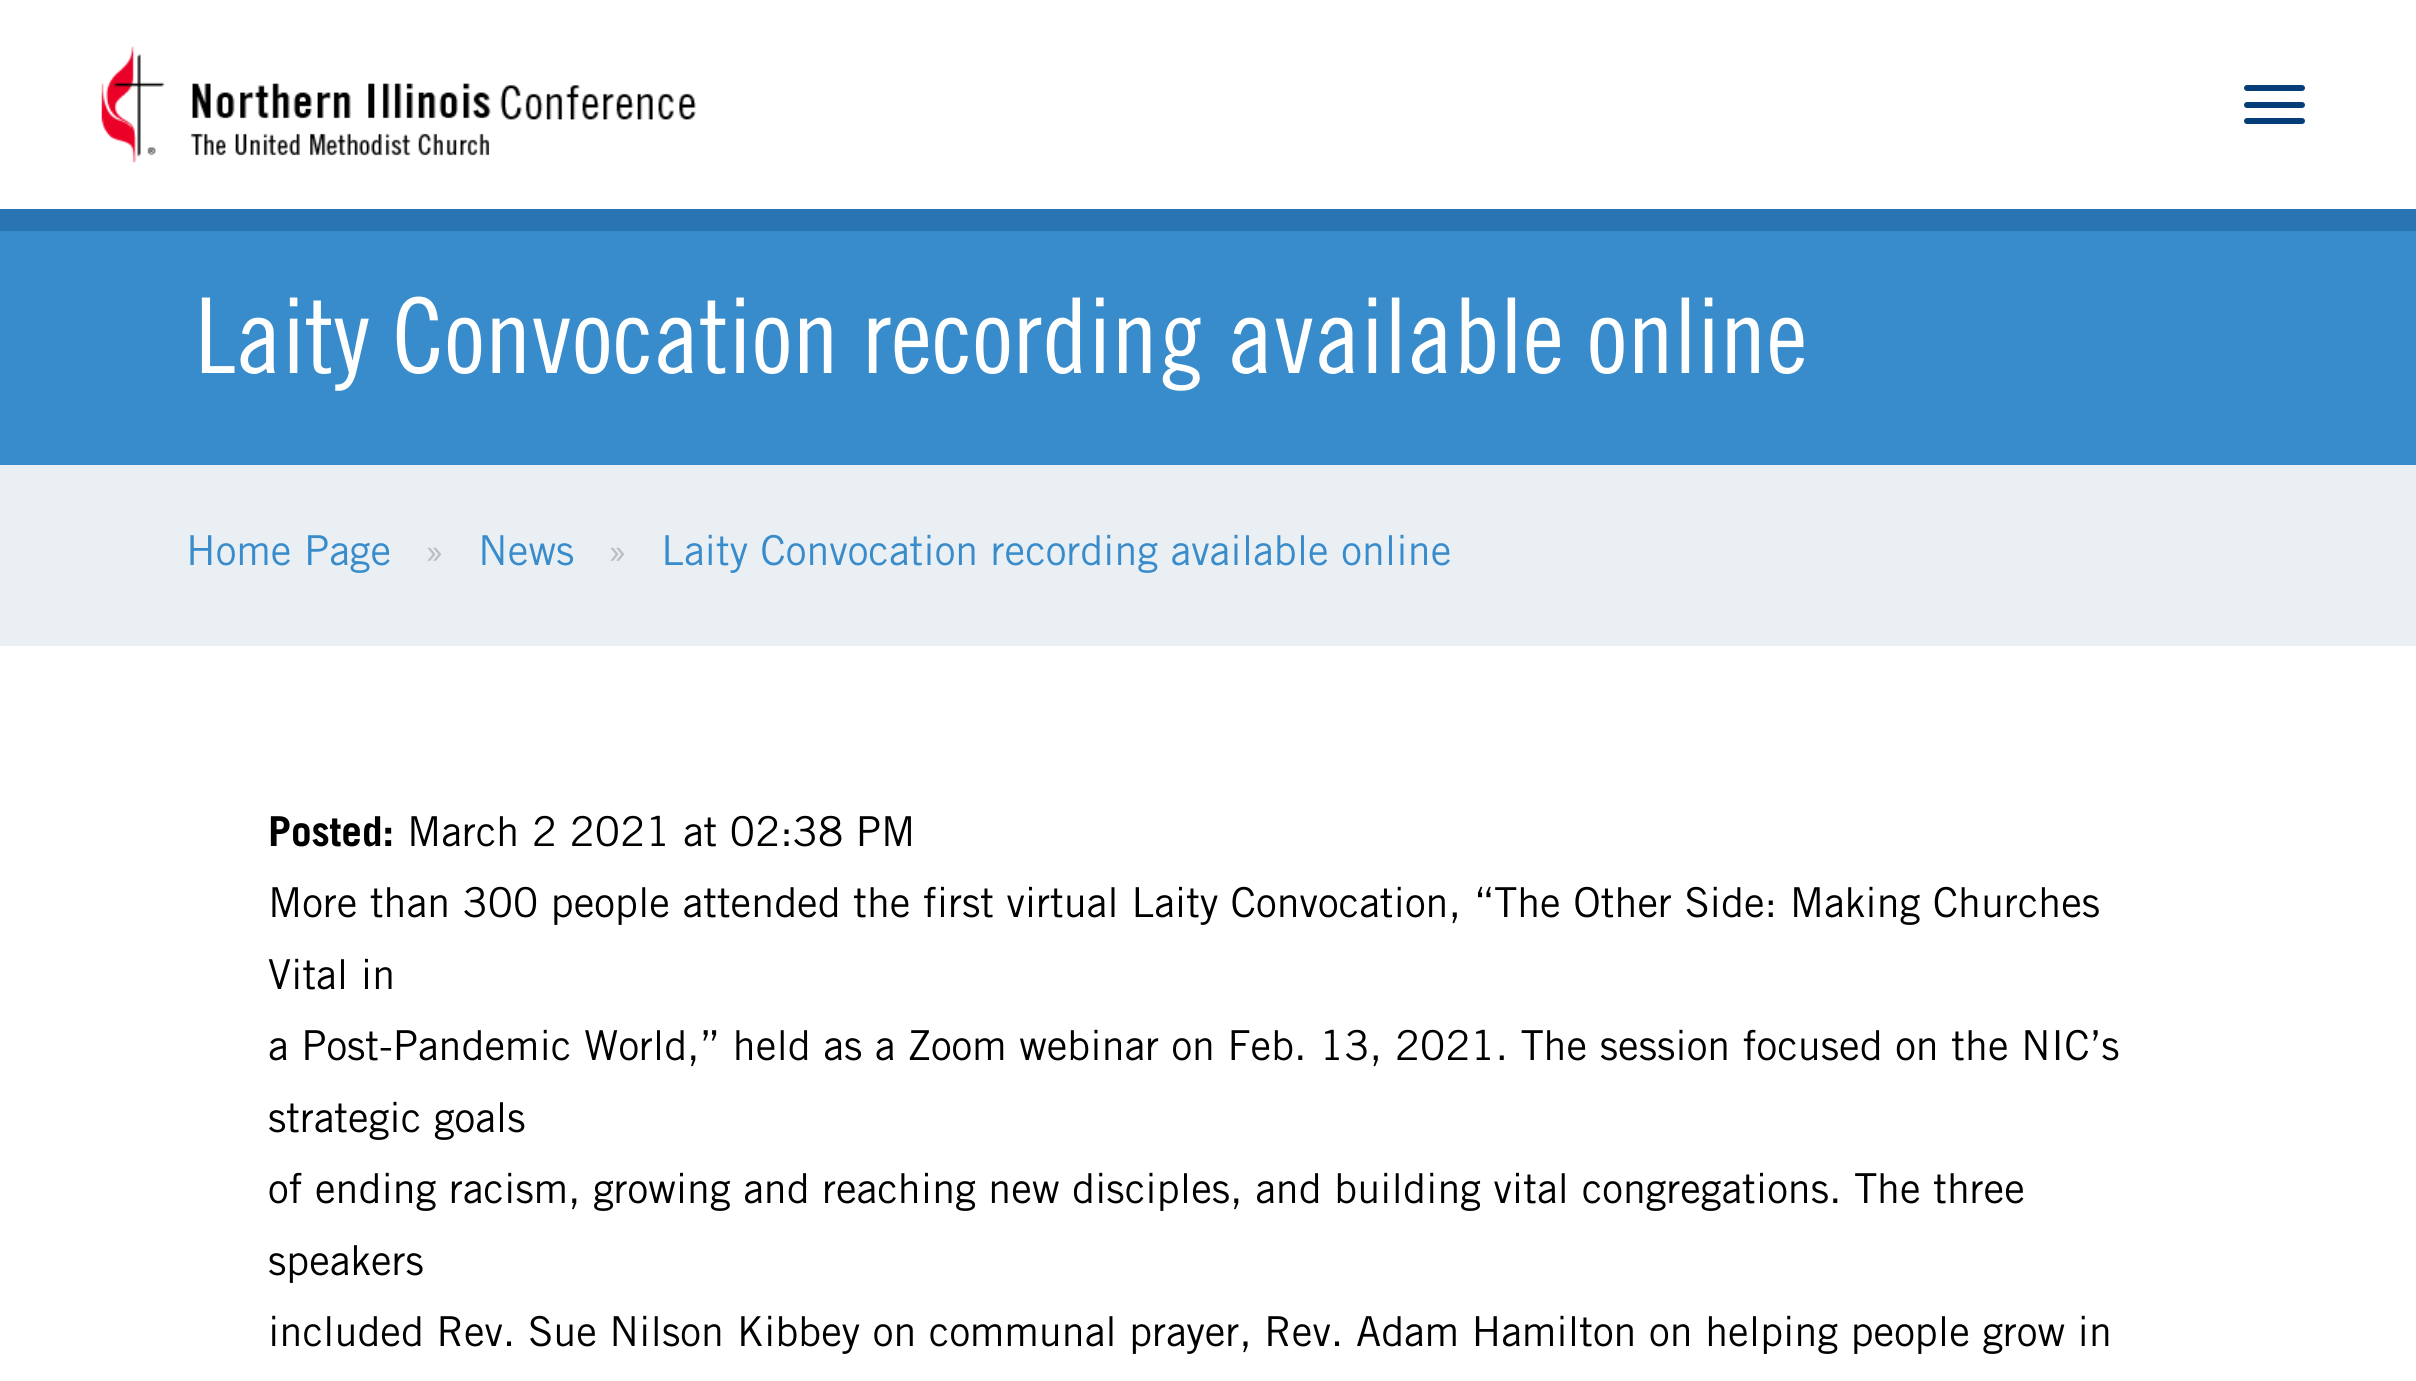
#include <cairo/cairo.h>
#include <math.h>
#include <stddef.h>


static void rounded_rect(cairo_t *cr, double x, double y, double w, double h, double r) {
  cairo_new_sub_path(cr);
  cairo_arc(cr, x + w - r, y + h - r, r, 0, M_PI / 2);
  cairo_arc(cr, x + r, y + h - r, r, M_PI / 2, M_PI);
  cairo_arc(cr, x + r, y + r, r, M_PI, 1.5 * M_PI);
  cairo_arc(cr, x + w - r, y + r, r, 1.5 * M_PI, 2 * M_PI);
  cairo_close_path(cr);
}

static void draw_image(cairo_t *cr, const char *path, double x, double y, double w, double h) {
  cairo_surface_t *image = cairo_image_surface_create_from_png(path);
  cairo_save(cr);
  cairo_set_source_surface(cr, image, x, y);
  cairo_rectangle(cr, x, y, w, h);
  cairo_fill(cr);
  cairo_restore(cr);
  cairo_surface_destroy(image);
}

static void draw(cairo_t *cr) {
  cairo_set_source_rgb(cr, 1, 1, 1);
  cairo_paint(cr);
  cairo_rectangle(cr, -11, -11, 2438, 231);
  cairo_set_source_rgb(cr, 41 / 255.0, 116 / 255.0, 178 / 255.0);
  cairo_set_line_width(cr, 22);
  cairo_stroke(cr);
  draw_image(cr, "images/1.png", 101, 46, 595, 117);
  cairo_set_source_rgb(cr, 4 / 255.0, 61 / 255.0, 120 / 255.0);
  rounded_rect(cr, 2244, 85, 61, 6, 3);
  cairo_fill(cr);
  rounded_rect(cr, 2244, 102, 61, 6, 3);
  cairo_fill(cr);
  rounded_rect(cr, 2244, 118, 61, 6, 3);
  cairo_fill(cr);
  cairo_set_source_rgb(cr, 57 / 255.0, 140 / 255.0, 203 / 255.0);
  cairo_rectangle(cr, 0, 231, 2416, 234);
  cairo_fill(cr);
  cairo_set_source_rgb(cr, 234 / 255.0, 239 / 255.0, 243 / 255.0);
  cairo_rectangle(cr, 0, 465, 2416, 181);
  cairo_fill(cr);
  cairo_select_font_face(cr, "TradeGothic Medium", CAIRO_FONT_SLANT_NORMAL, CAIRO_FONT_WEIGHT_NORMAL);
  cairo_set_font_size(cr, 104.5);
  cairo_set_source_rgb(cr, 1, 1, 1);
  cairo_move_to(cr, 195, 373);
  cairo_show_text(cr, "Laity Convocation recording available online");
  cairo_select_font_face(cr, "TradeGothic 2 Medium", CAIRO_FONT_SLANT_NORMAL, CAIRO_FONT_WEIGHT_NORMAL);
  cairo_set_font_size(cr, 41.25);
  cairo_set_source_rgb(cr, 57 / 255.0, 140 / 255.0, 203 / 255.0);
  cairo_move_to(cr, 186, 565);
  cairo_show_text(cr, "Home Page");
  cairo_set_source_rgb(cr, 187 / 255.0, 191 / 255.0, 194 / 255.0);
  cairo_move_to(cr, 424, 565);
  cairo_show_text(cr, "»");
  cairo_set_source_rgb(cr, 57 / 255.0, 140 / 255.0, 203 / 255.0);
  cairo_move_to(cr, 478, 565);
  cairo_show_text(cr, "News");
  cairo_set_source_rgb(cr, 187 / 255.0, 191 / 255.0, 194 / 255.0);
  cairo_move_to(cr, 607, 565);
  cairo_show_text(cr, "»");
  cairo_set_source_rgb(cr, 57 / 255.0, 140 / 255.0, 203 / 255.0);
  cairo_move_to(cr, 661, 565);
  cairo_show_text(cr, "Laity Convocation recording available online");
  cairo_select_font_face(cr, "TradeGothic", CAIRO_FONT_SLANT_NORMAL, CAIRO_FONT_WEIGHT_BOLD);
  cairo_set_source_rgb(cr, 0, 0, 0);
  cairo_move_to(cr, 268, 846);
  cairo_show_text(cr, "Posted:");
  cairo_select_font_face(cr, "TradeGothic 2 Medium", CAIRO_FONT_SLANT_NORMAL, CAIRO_FONT_WEIGHT_NORMAL);
  cairo_move_to(cr, 407, 846);
  cairo_show_text(cr, "March 2 2021 at 02:38 PM");
  cairo_move_to(cr, 268, 917);
  cairo_show_text(cr, "More than 300 people attended the first virtual Laity Convocation, “The Other Side: Making Churches");
  cairo_move_to(cr, 268, 989);
  cairo_show_text(cr, "Vital in");
  cairo_move_to(cr, 268, 1060);
  cairo_show_text(cr, "a Post-Pandemic World,” held as a Zoom webinar on Feb. 13, 2021. The session focused on the NIC’s");
  cairo_move_to(cr, 268, 1132);
  cairo_show_text(cr, "strategic goals");
  cairo_move_to(cr, 268, 1203);
  cairo_show_text(cr, "of ending racism, growing and reaching new disciples, and building vital congregations. The three");
  cairo_move_to(cr, 268, 1275);
  cairo_show_text(cr, "speakers");
  cairo_move_to(cr, 268, 1346);
  cairo_show_text(cr, "included Rev. Sue Nilson Kibbey on communal prayer, Rev. Adam Hamilton on helping people grow in");
}

int main(void) {
  cairo_surface_t *surface = cairo_image_surface_create(CAIRO_FORMAT_RGB24, 2416, 1381);
  cairo_t *cr = cairo_create(surface);
  cairo_font_options_t *options = cairo_font_options_create();
  cairo_font_options_set_hint_metrics(options, CAIRO_HINT_METRICS_OFF);
  cairo_font_options_set_hint_style(options, CAIRO_HINT_STYLE_NONE);
  cairo_set_font_options(cr, options);
  cairo_set_miter_limit(cr, 4);
  draw(cr);
  cairo_surface_write_to_png(surface, "out.png");
  cairo_font_options_destroy(options);
  cairo_destroy(cr);
  cairo_surface_destroy(surface);
  return 0;
}
